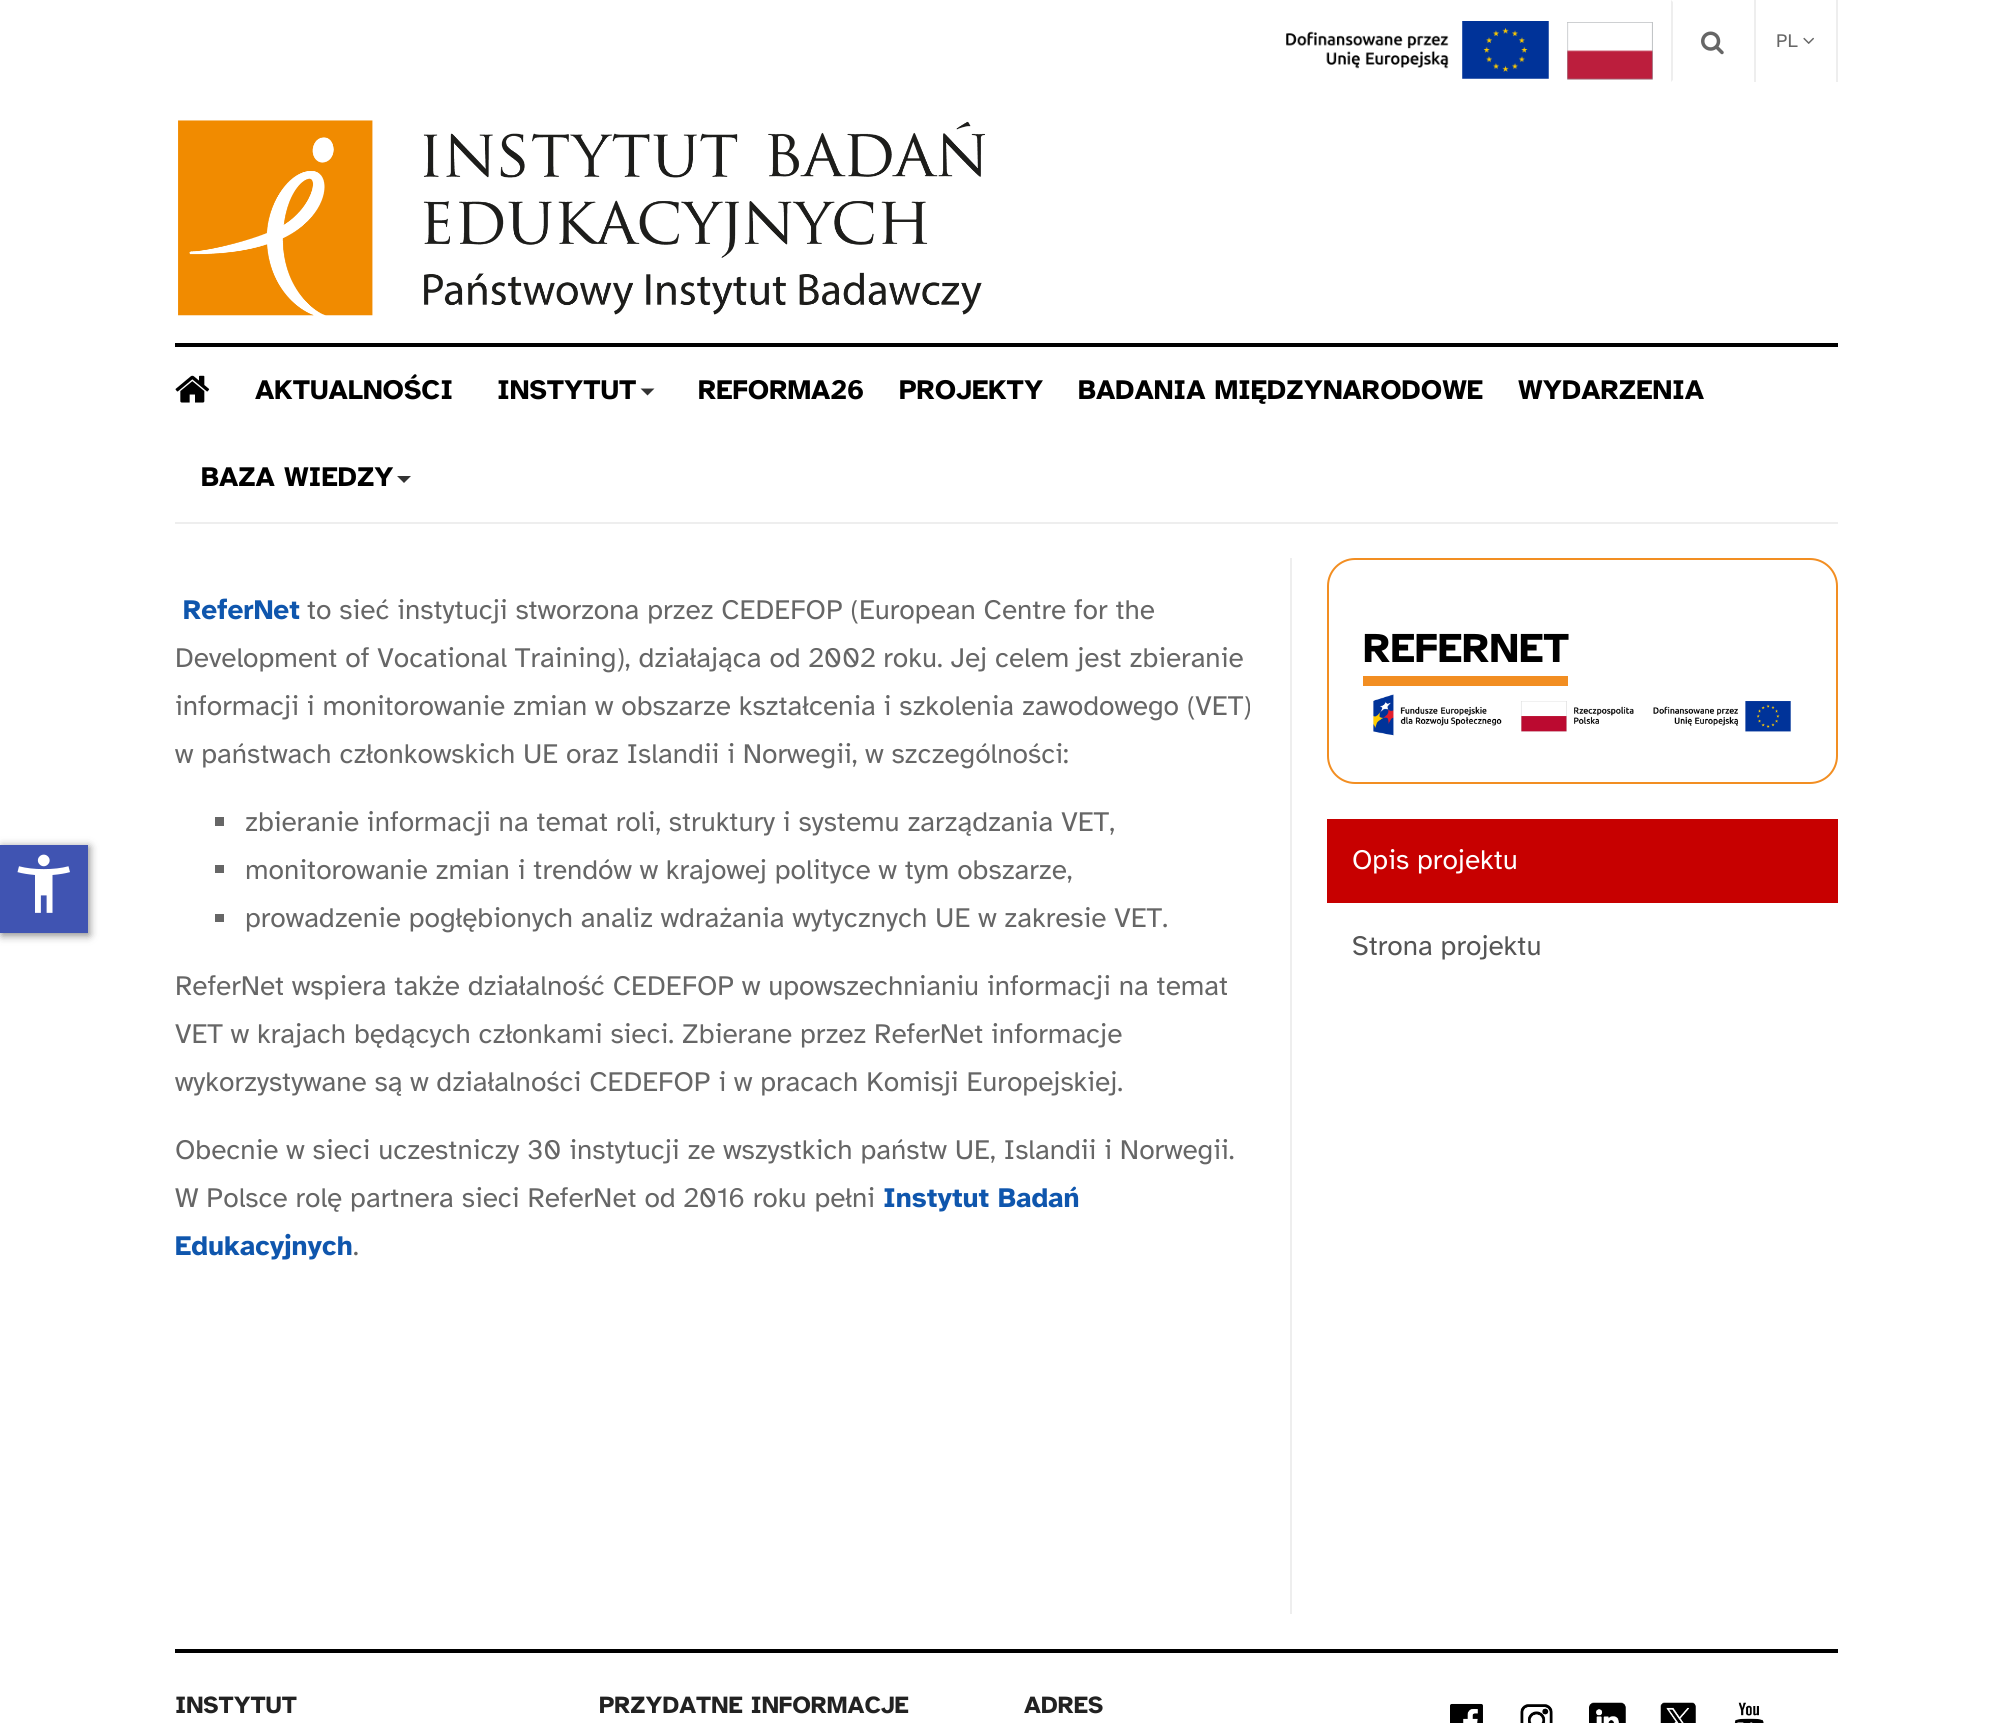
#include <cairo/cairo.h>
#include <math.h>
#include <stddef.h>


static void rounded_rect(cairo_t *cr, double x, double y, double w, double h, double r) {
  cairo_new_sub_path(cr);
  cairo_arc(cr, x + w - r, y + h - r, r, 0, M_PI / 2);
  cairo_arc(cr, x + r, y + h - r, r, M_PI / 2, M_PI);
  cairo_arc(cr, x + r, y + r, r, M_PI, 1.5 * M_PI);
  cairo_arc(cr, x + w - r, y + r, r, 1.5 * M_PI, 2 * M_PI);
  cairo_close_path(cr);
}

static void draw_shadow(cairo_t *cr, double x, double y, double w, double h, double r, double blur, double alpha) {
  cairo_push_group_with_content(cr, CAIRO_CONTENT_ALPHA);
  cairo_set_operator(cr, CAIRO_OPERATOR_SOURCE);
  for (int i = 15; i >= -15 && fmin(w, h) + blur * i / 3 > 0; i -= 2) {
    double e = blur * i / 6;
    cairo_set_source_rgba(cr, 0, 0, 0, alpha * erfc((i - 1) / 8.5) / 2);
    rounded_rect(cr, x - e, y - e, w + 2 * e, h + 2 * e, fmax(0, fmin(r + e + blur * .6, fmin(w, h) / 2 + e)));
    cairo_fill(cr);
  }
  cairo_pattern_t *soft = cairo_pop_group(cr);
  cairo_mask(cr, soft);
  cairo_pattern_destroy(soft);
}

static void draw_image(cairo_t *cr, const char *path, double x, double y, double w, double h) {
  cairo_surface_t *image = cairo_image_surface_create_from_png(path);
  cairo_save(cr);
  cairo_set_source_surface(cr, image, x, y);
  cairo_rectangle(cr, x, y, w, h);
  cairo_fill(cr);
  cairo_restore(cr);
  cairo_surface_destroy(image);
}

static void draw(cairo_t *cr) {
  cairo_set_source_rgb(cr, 1, 1, 1);
  cairo_paint(cr);
  cairo_set_source_rgb(cr, 0, 0, 0);
  draw_shadow(cr, 2, 847, 87, 88, 0, 4.5, 0.5);
  cairo_set_source_rgb(cr, 64 / 255.0, 84 / 255.0, 178 / 255.0);
  cairo_rectangle(cr, 0, 845, 88, 88);
  cairo_fill(cr);
  draw_image(cr, "images/1.png", 17, 854, 53, 59);
  draw_image(cr, "images/2.png", 1286, 21, 263, 58);
  draw_image(cr, "images/3.png", 1567, 22, 86, 58);
  cairo_set_source_rgb(cr, 238 / 255.0, 238 / 255.0, 238 / 255.0);
  cairo_new_path(cr);
  cairo_move_to(cr, 1671, 82);
  cairo_line_to(cr, 1671, 0);
  cairo_line_to(cr, 1673, 2);
  cairo_line_to(cr, 1673, 80);
  cairo_close_path(cr);
  cairo_fill(cr);
  draw_image(cr, "images/4.png", 1701, 31, 23, 24);
  cairo_rectangle(cr, 1836, 0, 2, 82);
  cairo_fill(cr);
  cairo_rectangle(cr, 1754, 0, 2, 82);
  cairo_fill(cr);
  draw_image(cr, "images/5.png", 1803, 37, 11, 7);
  draw_image(cr, "images/6.png", 178, 120, 807, 196);
  cairo_set_source_rgb(cr, 0, 0, 0);
  cairo_rectangle(cr, 175, 343, 1663, 4);
  cairo_fill(cr);
  cairo_set_source_rgb(cr, 238 / 255.0, 238 / 255.0, 238 / 255.0);
  cairo_rectangle(cr, 175, 522, 1663, 2);
  cairo_fill(cr);
  draw_image(cr, "images/7.png", 175, 375, 35, 28);
  cairo_set_source_rgb(cr, 51 / 255.0, 51 / 255.0, 51 / 255.0);
  cairo_new_path(cr);
  cairo_move_to(cr, 640.5, 388.5);
  cairo_line_to(cr, 654.5, 388.5);
  cairo_line_to(cr, 647.5, 395.5);
  cairo_close_path(cr);
  cairo_fill(cr);
  cairo_new_path(cr);
  cairo_move_to(cr, 397, 476);
  cairo_line_to(cr, 411, 476);
  cairo_line_to(cr, 404, 483);
  cairo_close_path(cr);
  cairo_fill(cr);
  cairo_set_source_rgb(cr, 102 / 255.0, 102 / 255.0, 102 / 255.0);
  cairo_rectangle(cr, 215, 817, 9, 9);
  cairo_fill(cr);
  cairo_rectangle(cr, 215, 865, 9, 8);
  cairo_fill(cr);
  cairo_rectangle(cr, 215, 914, 9, 8);
  cairo_fill(cr);
  cairo_set_source_rgb(cr, 238 / 255.0, 238 / 255.0, 238 / 255.0);
  cairo_rectangle(cr, 1290, 558, 2, 1056);
  cairo_fill(cr);
  rounded_rect(cr, 1328, 559, 509, 224, 27);
  cairo_set_source_rgb(cr, 242 / 255.0, 142 / 255.0, 34 / 255.0);
  cairo_stroke(cr);
  cairo_rectangle(cr, 1363, 676, 205, 10);
  cairo_fill(cr);
  draw_image(cr, "images/8.png", 1373, 694, 418, 42);
  cairo_set_source_rgb(cr, 199 / 255.0, 0, 0);
  cairo_rectangle(cr, 1327, 819, 511, 84);
  cairo_fill(cr);
  cairo_set_source_rgb(cr, 0, 0, 0);
  cairo_rectangle(cr, 175, 1649, 1663, 4);
  cairo_fill(cr);
  draw_image(cr, "images/9.png", 1450, 1703, 33, 20);
  draw_image(cr, "images/10.png", 1520, 1704, 33, 19);
  draw_image(cr, "images/11.png", 1589, 1702, 37, 21);
  draw_image(cr, "images/12.png", 1660, 1702, 36, 21);
  draw_image(cr, "images/13.png", 1734, 1702, 30, 21);
  cairo_select_font_face(cr, "Atkinson Hyperlegible", CAIRO_FONT_SLANT_NORMAL, CAIRO_FONT_WEIGHT_NORMAL);
  cairo_set_font_size(cr, 19);
  cairo_set_source_rgb(cr, 102 / 255.0, 102 / 255.0, 102 / 255.0);
  cairo_move_to(cr, 1776, 47);
  cairo_show_text(cr, "PL");
  cairo_select_font_face(cr, "Atkinson Hyperlegible", CAIRO_FONT_SLANT_NORMAL, CAIRO_FONT_WEIGHT_BOLD);
  cairo_set_font_size(cr, 28);
  cairo_set_source_rgb(cr, 0, 0, 0);
  cairo_move_to(cr, 255, 399);
  cairo_show_text(cr, "AKTUALNOŚCI");
  cairo_move_to(cr, 497, 399);
  cairo_show_text(cr, "INSTYTUT");
  cairo_move_to(cr, 698, 399);
  cairo_show_text(cr, "REFORMA26");
  cairo_move_to(cr, 899, 399);
  cairo_show_text(cr, "PROJEKTY");
  cairo_move_to(cr, 1078, 399);
  cairo_show_text(cr, "BADANIA MIĘDZYNARODOWE");
  cairo_move_to(cr, 1518, 399);
  cairo_show_text(cr, "WYDARZENIA");
  cairo_move_to(cr, 201, 486);
  cairo_show_text(cr, "BAZA WIEDZY");
  cairo_set_source_rgb(cr, 15 / 255.0, 86 / 255.0, 173 / 255.0);
  cairo_move_to(cr, 183, 619);
  cairo_show_text(cr, "ReferNet");
  cairo_select_font_face(cr, "Atkinson Hyperlegible", CAIRO_FONT_SLANT_NORMAL, CAIRO_FONT_WEIGHT_NORMAL);
  cairo_set_source_rgb(cr, 102 / 255.0, 102 / 255.0, 102 / 255.0);
  cairo_move_to(cr, 307, 619);
  cairo_show_text(cr, "to sieć instytucji stworzona przez CEDEFOP (European Centre for the");
  cairo_move_to(cr, 175, 667);
  cairo_show_text(cr, "Development of Vocational Training), działająca od 2002 roku. Jej celem jest zbieranie");
  cairo_move_to(cr, 175, 715);
  cairo_show_text(cr, "informacji i monitorowanie zmian w obszarze kształcenia i szkolenia zawodowego (VET)");
  cairo_move_to(cr, 175, 763);
  cairo_show_text(cr, "w państwach członkowskich UE oraz Islandii i Norwegii, w szczególności:");
  cairo_move_to(cr, 245, 831);
  cairo_show_text(cr, "zbieranie informacji na temat roli, struktury i systemu zarządzania VET,");
  cairo_move_to(cr, 245, 879);
  cairo_show_text(cr, "monitorowanie zmian i trendów w krajowej polityce w tym obszarze,");
  cairo_move_to(cr, 245, 927);
  cairo_show_text(cr, "prowadzenie pogłębionych analiz wdrażania wytycznych UE w zakresie VET.");
  cairo_move_to(cr, 175, 995);
  cairo_show_text(cr, "ReferNet wspiera także działalność CEDEFOP w upowszechnianiu informacji na temat");
  cairo_move_to(cr, 175, 1043);
  cairo_show_text(cr, "VET w krajach będących członkami sieci. Zbierane przez ReferNet informacje");
  cairo_move_to(cr, 175, 1091);
  cairo_show_text(cr, "wykorzystywane są w działalności CEDEFOP i w pracach Komisji Europejskiej.");
  cairo_move_to(cr, 175, 1159);
  cairo_show_text(cr, "Obecnie w sieci uczestniczy 30 instytucji ze wszystkich państw UE, Islandii i Norwegii.");
  cairo_move_to(cr, 175, 1207);
  cairo_show_text(cr, "W Polsce rolę partnera sieci ReferNet od 2016 roku pełni");
  cairo_select_font_face(cr, "Atkinson Hyperlegible", CAIRO_FONT_SLANT_NORMAL, CAIRO_FONT_WEIGHT_BOLD);
  cairo_set_source_rgb(cr, 15 / 255.0, 86 / 255.0, 173 / 255.0);
  cairo_move_to(cr, 883, 1207);
  cairo_show_text(cr, "Instytut Badań");
  cairo_move_to(cr, 175, 1255);
  cairo_show_text(cr, "Edukacyjnych");
  cairo_select_font_face(cr, "Atkinson Hyperlegible", CAIRO_FONT_SLANT_NORMAL, CAIRO_FONT_WEIGHT_NORMAL);
  cairo_set_source_rgb(cr, 102 / 255.0, 102 / 255.0, 102 / 255.0);
  cairo_move_to(cr, 353, 1255);
  cairo_show_text(cr, ".");
  cairo_select_font_face(cr, "Atkinson Hyperlegible", CAIRO_FONT_SLANT_NORMAL, CAIRO_FONT_WEIGHT_BOLD);
  cairo_set_font_size(cr, 42);
  cairo_set_source_rgb(cr, 0, 0, 0);
  cairo_move_to(cr, 1363, 662);
  cairo_show_text(cr, "REFERNET");
  cairo_select_font_face(cr, "Atkinson Hyperlegible", CAIRO_FONT_SLANT_NORMAL, CAIRO_FONT_WEIGHT_NORMAL);
  cairo_set_font_size(cr, 28);
  cairo_set_source_rgb(cr, 1, 1, 1);
  cairo_move_to(cr, 1352, 869);
  cairo_show_text(cr, "Opis projektu");
  cairo_set_source_rgb(cr, 85 / 255.0, 85 / 255.0, 85 / 255.0);
  cairo_move_to(cr, 1352, 955);
  cairo_show_text(cr, "Strona projektu");
  cairo_select_font_face(cr, "Atkinson Hyperlegible", CAIRO_FONT_SLANT_NORMAL, CAIRO_FONT_WEIGHT_BOLD);
  cairo_set_font_size(cr, 24.5);
  cairo_set_source_rgb(cr, 34 / 255.0, 34 / 255.0, 34 / 255.0);
  cairo_move_to(cr, 175, 1713);
  cairo_show_text(cr, "INSTYTUT");
  cairo_move_to(cr, 599, 1713);
  cairo_show_text(cr, "PRZYDATNE INFORMACJE");
  cairo_move_to(cr, 1024, 1713);
  cairo_show_text(cr, "ADRES");
}

int main(void) {
  cairo_surface_t *surface = cairo_image_surface_create(CAIRO_FORMAT_RGB24, 2011, 1723);
  cairo_t *cr = cairo_create(surface);
  cairo_font_options_t *options = cairo_font_options_create();
  cairo_font_options_set_hint_metrics(options, CAIRO_HINT_METRICS_OFF);
  cairo_font_options_set_hint_style(options, CAIRO_HINT_STYLE_NONE);
  cairo_set_font_options(cr, options);
  cairo_set_miter_limit(cr, 4);
  draw(cr);
  cairo_surface_write_to_png(surface, "out.png");
  cairo_font_options_destroy(options);
  cairo_destroy(cr);
  cairo_surface_destroy(surface);
  return 0;
}
